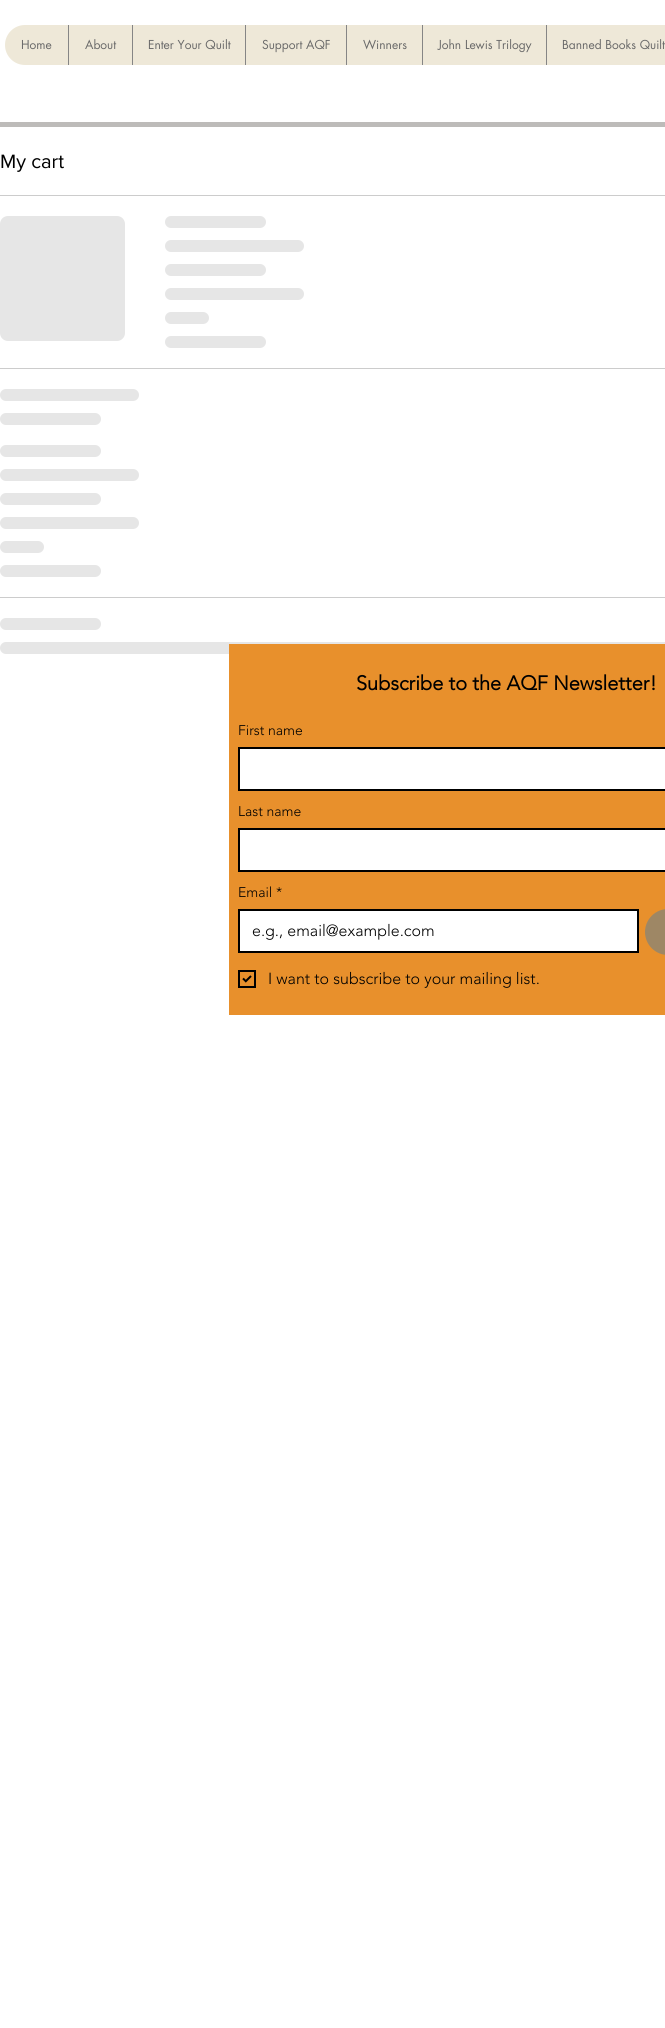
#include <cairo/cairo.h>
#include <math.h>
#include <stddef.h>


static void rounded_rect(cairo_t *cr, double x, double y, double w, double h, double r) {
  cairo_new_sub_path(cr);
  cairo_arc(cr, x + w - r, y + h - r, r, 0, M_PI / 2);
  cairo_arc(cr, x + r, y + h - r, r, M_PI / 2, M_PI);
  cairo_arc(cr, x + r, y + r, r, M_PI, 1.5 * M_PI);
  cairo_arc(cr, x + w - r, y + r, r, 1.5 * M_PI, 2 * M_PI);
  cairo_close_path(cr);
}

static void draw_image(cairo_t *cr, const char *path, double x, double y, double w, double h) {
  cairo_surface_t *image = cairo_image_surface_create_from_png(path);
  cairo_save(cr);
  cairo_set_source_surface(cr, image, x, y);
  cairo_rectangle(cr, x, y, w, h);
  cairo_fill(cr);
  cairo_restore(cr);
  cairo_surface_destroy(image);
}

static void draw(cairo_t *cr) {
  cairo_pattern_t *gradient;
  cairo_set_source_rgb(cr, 1, 1, 1);
  cairo_paint(cr);
  cairo_set_source_rgb(cr, 238 / 255.0, 232 / 255.0, 216 / 255.0);
  rounded_rect(cr, 5, 25, 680, 40, 20);
  cairo_fill(cr);
  cairo_set_source_rgb(cr, 133 / 255.0, 133 / 255.0, 133 / 255.0);
  cairo_rectangle(cr, 68, 25, 1, 40);
  cairo_fill(cr);
  cairo_rectangle(cr, 132, 25, 1, 40);
  cairo_fill(cr);
  cairo_rectangle(cr, 245, 25, 1, 40);
  cairo_fill(cr);
  cairo_rectangle(cr, 346, 25, 1, 40);
  cairo_fill(cr);
  cairo_rectangle(cr, 422, 25, 1, 40);
  cairo_fill(cr);
  cairo_rectangle(cr, 546, 25, 1, 40);
  cairo_fill(cr);
  cairo_set_source_rgb(cr, 189 / 255.0, 187 / 255.0, 185 / 255.0);
  cairo_rectangle(cr, 0, 122, 665, 5);
  cairo_fill(cr);
  cairo_set_source_rgb(cr, 204 / 255.0, 204 / 255.0, 204 / 255.0);
  cairo_rectangle(cr, 0, 195, 665, 1);
  cairo_fill(cr);
  gradient = cairo_pattern_create_linear(0, 279, 500, 279);
  cairo_pattern_add_color_stop_rgba(gradient, 0.25, 230 / 255.0, 230 / 255.0, 230 / 255.0, 1);
  cairo_pattern_add_color_stop_rgba(gradient, 0.37, 204 / 255.0, 204 / 255.0, 204 / 255.0, 1);
  cairo_pattern_add_color_stop_rgba(gradient, 0.63, 230 / 255.0, 230 / 255.0, 230 / 255.0, 1);
  cairo_set_source(cr, gradient);
  cairo_pattern_destroy(gradient);
  rounded_rect(cr, 0, 216, 125, 125, 8);
  cairo_fill(cr);
  gradient = cairo_pattern_create_linear(165, 222, 569, 222);
  cairo_pattern_add_color_stop_rgba(gradient, 0.25, 230 / 255.0, 230 / 255.0, 230 / 255.0, 1);
  cairo_pattern_add_color_stop_rgba(gradient, 0.37, 204 / 255.0, 204 / 255.0, 204 / 255.0, 1);
  cairo_pattern_add_color_stop_rgba(gradient, 0.63, 230 / 255.0, 230 / 255.0, 230 / 255.0, 1);
  cairo_set_source(cr, gradient);
  cairo_pattern_destroy(gradient);
  rounded_rect(cr, 165, 216, 101, 12, 6);
  cairo_fill(cr);
  gradient = cairo_pattern_create_linear(165, 246, 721, 246);
  cairo_pattern_add_color_stop_rgba(gradient, 0.25, 230 / 255.0, 230 / 255.0, 230 / 255.0, 1);
  cairo_pattern_add_color_stop_rgba(gradient, 0.37, 204 / 255.0, 204 / 255.0, 204 / 255.0, 1);
  cairo_pattern_add_color_stop_rgba(gradient, 0.63, 230 / 255.0, 230 / 255.0, 230 / 255.0, 1);
  cairo_set_source(cr, gradient);
  cairo_pattern_destroy(gradient);
  rounded_rect(cr, 165, 240, 139, 12, 6);
  cairo_fill(cr);
  gradient = cairo_pattern_create_linear(165, 270, 569, 270);
  cairo_pattern_add_color_stop_rgba(gradient, 0.25, 230 / 255.0, 230 / 255.0, 230 / 255.0, 1);
  cairo_pattern_add_color_stop_rgba(gradient, 0.37, 204 / 255.0, 204 / 255.0, 204 / 255.0, 1);
  cairo_pattern_add_color_stop_rgba(gradient, 0.63, 230 / 255.0, 230 / 255.0, 230 / 255.0, 1);
  cairo_set_source(cr, gradient);
  cairo_pattern_destroy(gradient);
  rounded_rect(cr, 165, 264, 101, 12, 6);
  cairo_fill(cr);
  gradient = cairo_pattern_create_linear(165, 294, 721, 294);
  cairo_pattern_add_color_stop_rgba(gradient, 0.25, 230 / 255.0, 230 / 255.0, 230 / 255.0, 1);
  cairo_pattern_add_color_stop_rgba(gradient, 0.37, 204 / 255.0, 204 / 255.0, 204 / 255.0, 1);
  cairo_pattern_add_color_stop_rgba(gradient, 0.63, 230 / 255.0, 230 / 255.0, 230 / 255.0, 1);
  cairo_set_source(cr, gradient);
  cairo_pattern_destroy(gradient);
  rounded_rect(cr, 165, 288, 139, 12, 6);
  cairo_fill(cr);
  gradient = cairo_pattern_create_linear(165, 318, 341, 318);
  cairo_pattern_add_color_stop_rgba(gradient, 0.25, 230 / 255.0, 230 / 255.0, 230 / 255.0, 1);
  cairo_pattern_add_color_stop_rgba(gradient, 0.37, 204 / 255.0, 204 / 255.0, 204 / 255.0, 1);
  cairo_pattern_add_color_stop_rgba(gradient, 0.63, 230 / 255.0, 230 / 255.0, 230 / 255.0, 1);
  cairo_set_source(cr, gradient);
  cairo_pattern_destroy(gradient);
  rounded_rect(cr, 165, 312, 44, 12, 6);
  cairo_fill(cr);
  gradient = cairo_pattern_create_linear(165, 342, 569, 342);
  cairo_pattern_add_color_stop_rgba(gradient, 0.25, 230 / 255.0, 230 / 255.0, 230 / 255.0, 1);
  cairo_pattern_add_color_stop_rgba(gradient, 0.37, 204 / 255.0, 204 / 255.0, 204 / 255.0, 1);
  cairo_pattern_add_color_stop_rgba(gradient, 0.63, 230 / 255.0, 230 / 255.0, 230 / 255.0, 1);
  cairo_set_source(cr, gradient);
  cairo_pattern_destroy(gradient);
  rounded_rect(cr, 165, 336, 101, 12, 6);
  cairo_fill(cr);
  cairo_set_source_rgb(cr, 204 / 255.0, 204 / 255.0, 204 / 255.0);
  cairo_rectangle(cr, 0, 368, 665, 1);
  cairo_fill(cr);
  gradient = cairo_pattern_create_linear(0, 395, 556, 395);
  cairo_pattern_add_color_stop_rgba(gradient, 0.25, 230 / 255.0, 230 / 255.0, 230 / 255.0, 1);
  cairo_pattern_add_color_stop_rgba(gradient, 0.37, 204 / 255.0, 204 / 255.0, 204 / 255.0, 1);
  cairo_pattern_add_color_stop_rgba(gradient, 0.63, 230 / 255.0, 230 / 255.0, 230 / 255.0, 1);
  cairo_set_source(cr, gradient);
  cairo_pattern_destroy(gradient);
  rounded_rect(cr, 0, 389, 139, 12, 6);
  cairo_fill(cr);
  gradient = cairo_pattern_create_linear(0, 419, 404, 419);
  cairo_pattern_add_color_stop_rgba(gradient, 0.25, 230 / 255.0, 230 / 255.0, 230 / 255.0, 1);
  cairo_pattern_add_color_stop_rgba(gradient, 0.37, 204 / 255.0, 204 / 255.0, 204 / 255.0, 1);
  cairo_pattern_add_color_stop_rgba(gradient, 0.63, 230 / 255.0, 230 / 255.0, 230 / 255.0, 1);
  cairo_set_source(cr, gradient);
  cairo_pattern_destroy(gradient);
  rounded_rect(cr, 0, 413, 101, 12, 6);
  cairo_fill(cr);
  gradient = cairo_pattern_create_linear(0, 451, 404, 451);
  cairo_pattern_add_color_stop_rgba(gradient, 0.25, 230 / 255.0, 230 / 255.0, 230 / 255.0, 1);
  cairo_pattern_add_color_stop_rgba(gradient, 0.37, 204 / 255.0, 204 / 255.0, 204 / 255.0, 1);
  cairo_pattern_add_color_stop_rgba(gradient, 0.63, 230 / 255.0, 230 / 255.0, 230 / 255.0, 1);
  cairo_set_source(cr, gradient);
  cairo_pattern_destroy(gradient);
  rounded_rect(cr, 0, 445, 101, 12, 6);
  cairo_fill(cr);
  gradient = cairo_pattern_create_linear(0, 475, 556, 475);
  cairo_pattern_add_color_stop_rgba(gradient, 0.25, 230 / 255.0, 230 / 255.0, 230 / 255.0, 1);
  cairo_pattern_add_color_stop_rgba(gradient, 0.37, 204 / 255.0, 204 / 255.0, 204 / 255.0, 1);
  cairo_pattern_add_color_stop_rgba(gradient, 0.63, 230 / 255.0, 230 / 255.0, 230 / 255.0, 1);
  cairo_set_source(cr, gradient);
  cairo_pattern_destroy(gradient);
  rounded_rect(cr, 0, 469, 139, 12, 6);
  cairo_fill(cr);
  gradient = cairo_pattern_create_linear(0, 499, 404, 499);
  cairo_pattern_add_color_stop_rgba(gradient, 0.25, 230 / 255.0, 230 / 255.0, 230 / 255.0, 1);
  cairo_pattern_add_color_stop_rgba(gradient, 0.37, 204 / 255.0, 204 / 255.0, 204 / 255.0, 1);
  cairo_pattern_add_color_stop_rgba(gradient, 0.63, 230 / 255.0, 230 / 255.0, 230 / 255.0, 1);
  cairo_set_source(cr, gradient);
  cairo_pattern_destroy(gradient);
  rounded_rect(cr, 0, 493, 101, 12, 6);
  cairo_fill(cr);
  gradient = cairo_pattern_create_linear(0, 523, 556, 523);
  cairo_pattern_add_color_stop_rgba(gradient, 0.25, 230 / 255.0, 230 / 255.0, 230 / 255.0, 1);
  cairo_pattern_add_color_stop_rgba(gradient, 0.37, 204 / 255.0, 204 / 255.0, 204 / 255.0, 1);
  cairo_pattern_add_color_stop_rgba(gradient, 0.63, 230 / 255.0, 230 / 255.0, 230 / 255.0, 1);
  cairo_set_source(cr, gradient);
  cairo_pattern_destroy(gradient);
  rounded_rect(cr, 0, 517, 139, 12, 6);
  cairo_fill(cr);
  gradient = cairo_pattern_create_linear(0, 547, 176, 547);
  cairo_pattern_add_color_stop_rgba(gradient, 0.25, 230 / 255.0, 230 / 255.0, 230 / 255.0, 1);
  cairo_pattern_add_color_stop_rgba(gradient, 0.37, 204 / 255.0, 204 / 255.0, 204 / 255.0, 1);
  cairo_pattern_add_color_stop_rgba(gradient, 0.63, 230 / 255.0, 230 / 255.0, 230 / 255.0, 1);
  cairo_set_source(cr, gradient);
  cairo_pattern_destroy(gradient);
  rounded_rect(cr, 0, 541, 44, 12, 6);
  cairo_fill(cr);
  gradient = cairo_pattern_create_linear(0, 571, 404, 571);
  cairo_pattern_add_color_stop_rgba(gradient, 0.25, 230 / 255.0, 230 / 255.0, 230 / 255.0, 1);
  cairo_pattern_add_color_stop_rgba(gradient, 0.37, 204 / 255.0, 204 / 255.0, 204 / 255.0, 1);
  cairo_pattern_add_color_stop_rgba(gradient, 0.63, 230 / 255.0, 230 / 255.0, 230 / 255.0, 1);
  cairo_set_source(cr, gradient);
  cairo_pattern_destroy(gradient);
  rounded_rect(cr, 0, 565, 101, 12, 6);
  cairo_fill(cr);
  cairo_set_source_rgb(cr, 204 / 255.0, 204 / 255.0, 204 / 255.0);
  cairo_rectangle(cr, 0, 597, 665, 1);
  cairo_fill(cr);
  gradient = cairo_pattern_create_linear(0, 624, 404, 624);
  cairo_pattern_add_color_stop_rgba(gradient, 0.25, 230 / 255.0, 230 / 255.0, 230 / 255.0, 1);
  cairo_pattern_add_color_stop_rgba(gradient, 0.37, 204 / 255.0, 204 / 255.0, 204 / 255.0, 1);
  cairo_pattern_add_color_stop_rgba(gradient, 0.63, 230 / 255.0, 230 / 255.0, 230 / 255.0, 1);
  cairo_set_source(cr, gradient);
  cairo_pattern_destroy(gradient);
  rounded_rect(cr, 0, 618, 101, 12, 6);
  cairo_fill(cr);
  gradient = cairo_pattern_create_linear(0, 648, 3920, 648);
  cairo_pattern_add_color_stop_rgba(gradient, 0.25, 230 / 255.0, 230 / 255.0, 230 / 255.0, 1);
  cairo_pattern_add_color_stop_rgba(gradient, 0.37, 204 / 255.0, 204 / 255.0, 204 / 255.0, 1);
  cairo_pattern_add_color_stop_rgba(gradient, 0.63, 230 / 255.0, 230 / 255.0, 230 / 255.0, 1);
  cairo_set_source(cr, gradient);
  cairo_pattern_destroy(gradient);
  rounded_rect(cr, 0, 642, 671, 12, 6);
  cairo_fill(cr);
  cairo_set_source_rgb(cr, 232 / 255.0, 144 / 255.0, 44 / 255.0);
  cairo_rectangle(cr, 229, 644, 436, 371);
  cairo_fill(cr);
  cairo_set_source_rgb(cr, 1, 1, 1);
  cairo_rectangle(cr, 239, 748, 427, 42);
  cairo_fill_preserve(cr);
  cairo_set_source_rgb(cr, 0, 0, 0);
  cairo_stroke(cr);
  cairo_set_source_rgb(cr, 1, 1, 1);
  cairo_rectangle(cr, 239, 829, 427, 42);
  cairo_fill_preserve(cr);
  cairo_set_source_rgb(cr, 0, 0, 0);
  cairo_stroke(cr);
  cairo_set_source_rgb(cr, 1, 1, 1);
  cairo_rectangle(cr, 239, 910, 399, 42);
  cairo_fill_preserve(cr);
  cairo_set_source_rgb(cr, 0, 0, 0);
  cairo_stroke(cr);
  cairo_set_source_rgb(cr, 158 / 255.0, 135 / 255.0, 101 / 255.0);
  rounded_rect(cr, 645, 909, 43, 46, 23);
  cairo_fill(cr);
  cairo_rectangle(cr, 239, 971, 16, 16);
  cairo_set_source_rgb(cr, 0, 0, 0);
  cairo_stroke(cr);
  draw_image(cr, "images/1.png", 242, 975, 10, 8);
  cairo_select_font_face(cr, "futura", CAIRO_FONT_SLANT_NORMAL, CAIRO_FONT_WEIGHT_NORMAL);
  cairo_set_font_size(cr, 12);
  cairo_set_source_rgb(cr, 105 / 255.0, 105 / 255.0, 105 / 255.0);
  cairo_move_to(cr, 21, 49);
  cairo_show_text(cr, "Home");
  cairo_move_to(cr, 85, 49);
  cairo_show_text(cr, "About");
  cairo_move_to(cr, 148, 49);
  cairo_show_text(cr, "Enter Your Quilt");
  cairo_move_to(cr, 262, 49);
  cairo_show_text(cr, "Support AQF");
  cairo_move_to(cr, 363, 49);
  cairo_show_text(cr, "Winners");
  cairo_move_to(cr, 438, 49);
  cairo_show_text(cr, "John Lewis Trilogy");
  cairo_move_to(cr, 562, 49);
  cairo_show_text(cr, "Banned Books Quilt");
  cairo_select_font_face(cr, "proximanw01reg", CAIRO_FONT_SLANT_NORMAL, CAIRO_FONT_WEIGHT_NORMAL);
  cairo_set_font_size(cr, 20);
  cairo_set_source_rgb(cr, 0, 0, 0);
  cairo_move_to(cr, 0, 168);
  cairo_show_text(cr, "My cart");
  cairo_select_font_face(cr, "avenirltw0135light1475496", CAIRO_FONT_SLANT_NORMAL, CAIRO_FONT_WEIGHT_BOLD);
  cairo_move_to(cr, 356, 690);
  cairo_show_text(cr, "Subscribe to the AQF Newsletter!");
  cairo_select_font_face(cr, "avenirltw0135light1475496 Light", CAIRO_FONT_SLANT_NORMAL, CAIRO_FONT_WEIGHT_NORMAL);
  cairo_set_font_size(cr, 14);
  cairo_move_to(cr, 238, 735);
  cairo_show_text(cr, "First name");
  cairo_move_to(cr, 238, 816);
  cairo_show_text(cr, "Last name");
  cairo_move_to(cr, 238, 897);
  cairo_show_text(cr, "Email");
  cairo_move_to(cr, 276, 897);
  cairo_show_text(cr, "*");
  cairo_set_font_size(cr, 16);
  cairo_move_to(cr, 252, 936);
  cairo_show_text(cr, "e.g., email@example.com");
  cairo_move_to(cr, 268, 984);
  cairo_show_text(cr, "I want to subscribe to your mailing list.");
}

int main(void) {
  cairo_surface_t *surface = cairo_image_surface_create(CAIRO_FORMAT_RGB24, 665, 2028);
  cairo_t *cr = cairo_create(surface);
  cairo_font_options_t *options = cairo_font_options_create();
  cairo_font_options_set_hint_metrics(options, CAIRO_HINT_METRICS_OFF);
  cairo_font_options_set_hint_style(options, CAIRO_HINT_STYLE_NONE);
  cairo_set_font_options(cr, options);
  cairo_set_miter_limit(cr, 4);
  draw(cr);
  cairo_surface_write_to_png(surface, "out.png");
  cairo_font_options_destroy(options);
  cairo_destroy(cr);
  cairo_surface_destroy(surface);
  return 0;
}
